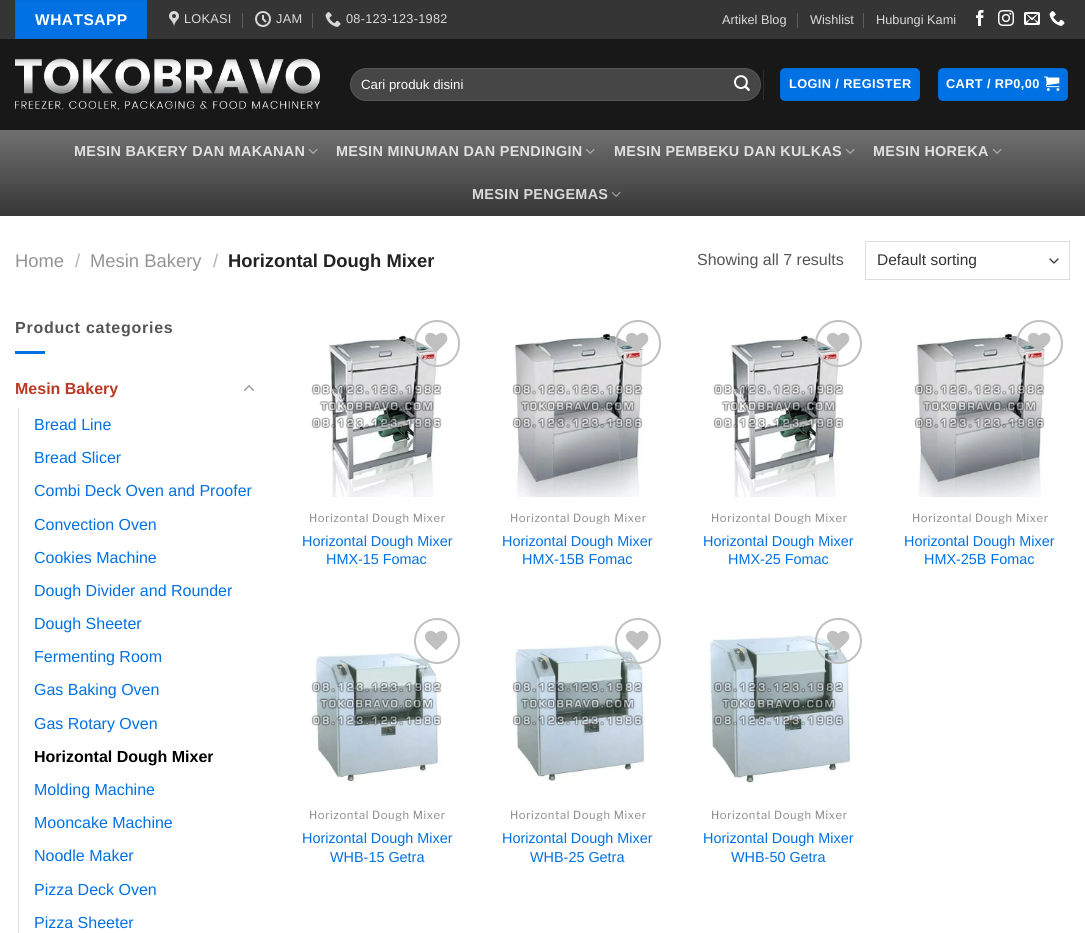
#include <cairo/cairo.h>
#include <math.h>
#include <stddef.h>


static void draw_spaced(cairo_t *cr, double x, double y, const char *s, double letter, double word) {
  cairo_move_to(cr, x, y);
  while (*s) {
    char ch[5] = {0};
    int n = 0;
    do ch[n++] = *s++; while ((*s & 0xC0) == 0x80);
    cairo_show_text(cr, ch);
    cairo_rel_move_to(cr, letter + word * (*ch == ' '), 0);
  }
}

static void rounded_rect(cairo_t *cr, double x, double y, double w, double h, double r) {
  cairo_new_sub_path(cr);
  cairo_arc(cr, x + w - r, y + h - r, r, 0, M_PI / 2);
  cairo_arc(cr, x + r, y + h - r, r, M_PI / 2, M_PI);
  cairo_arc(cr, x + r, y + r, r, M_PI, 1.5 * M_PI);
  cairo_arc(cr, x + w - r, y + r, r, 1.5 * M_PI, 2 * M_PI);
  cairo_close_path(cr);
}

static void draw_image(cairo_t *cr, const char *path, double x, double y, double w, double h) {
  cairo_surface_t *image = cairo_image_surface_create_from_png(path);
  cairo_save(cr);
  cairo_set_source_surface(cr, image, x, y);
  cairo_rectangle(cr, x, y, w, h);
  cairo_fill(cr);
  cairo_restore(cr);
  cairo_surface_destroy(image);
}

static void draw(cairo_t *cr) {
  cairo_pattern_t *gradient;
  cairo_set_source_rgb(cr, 1, 1, 1);
  cairo_paint(cr);
  cairo_set_source_rgb(cr, 53 / 255.0, 53 / 255.0, 53 / 255.0);
  cairo_rectangle(cr, 0, 0, 1085, 39);
  cairo_fill(cr);
  cairo_set_source_rgb(cr, 0, 113 / 255.0, 227 / 255.0);
  cairo_rectangle(cr, 15.5, 0.5, 131, 38);
  cairo_fill_preserve(cr);
  cairo_set_source_rgb(cr, 0, 107 / 255.0, 216 / 255.0);
  cairo_set_line_width(cr, 1);
  cairo_stroke(cr);
  draw_image(cr, "images/1.png", 169, 11, 10, 16);
  cairo_set_source_rgb(cr, 93 / 255.0, 93 / 255.0, 93 / 255.0);
  cairo_rectangle(cr, 242, 13, 1, 15);
  cairo_fill(cr);
  draw_image(cr, "images/2.png", 255, 11, 16, 16);
  cairo_rectangle(cr, 312, 13, 1, 15);
  cairo_fill(cr);
  draw_image(cr, "images/3.png", 325, 12, 16, 15);
  cairo_rectangle(cr, 797, 13, 1, 15);
  cairo_fill(cr);
  cairo_rectangle(cr, 863, 13, 1, 15);
  cairo_fill(cr);
  draw_image(cr, "images/4.png", 976, 10, 8, 16);
  draw_image(cr, "images/5.png", 998, 10, 16, 16);
  draw_image(cr, "images/6.png", 1024, 12, 16, 13);
  draw_image(cr, "images/7.png", 1049, 11, 16, 15);
  cairo_set_source_rgb(cr, 24 / 255.0, 24 / 255.0, 24 / 255.0);
  cairo_rectangle(cr, 0, 39, 1085, 91);
  cairo_fill(cr);
  draw_image(cr, "images/8.png", 15, 58, 305, 52);
  cairo_set_source_rgb(cr, 70 / 255.0, 70 / 255.0, 70 / 255.0);
  rounded_rect(cr, 350, 68, 411, 33, 16.5);
  cairo_fill(cr);
  rounded_rect(cr, 350.5, 68.5, 410, 32, 16);
  cairo_set_source_rgba(cr, 1, 1, 1, 0.09);
  cairo_stroke(cr);
  draw_image(cr, "images/9.png", 734, 75, 16, 16);
  cairo_set_source_rgb(cr, 47 / 255.0, 47 / 255.0, 47 / 255.0);
  cairo_rectangle(cr, 763, 70, 1, 30);
  cairo_fill(cr);
  cairo_set_source_rgb(cr, 0, 113 / 255.0, 227 / 255.0);
  rounded_rect(cr, 780, 68, 140, 33, 5);
  cairo_fill(cr);
  cairo_rectangle(cr, 780.5, 68.5, 139, 32);
  cairo_set_source_rgba(cr, 0, 0, 0, 0.05);
  cairo_stroke(cr);
  cairo_set_source_rgb(cr, 0, 113 / 255.0, 227 / 255.0);
  rounded_rect(cr, 938, 68, 130, 33, 5);
  cairo_fill(cr);
  cairo_rectangle(cr, 938.5, 68.5, 129, 32);
  cairo_set_source_rgba(cr, 0, 0, 0, 0.05);
  cairo_stroke(cr);
  draw_image(cr, "images/10.png", 1044, 76, 16, 15);
  gradient = cairo_pattern_create_linear(543, 216, 543, 130);
  cairo_pattern_add_color_stop_rgba(gradient, 0, 55 / 255.0, 55 / 255.0, 55 / 255.0, 1);
  cairo_pattern_add_color_stop_rgba(gradient, 1, 112 / 255.0, 112 / 255.0, 112 / 255.0, 1);
  cairo_set_source(cr, gradient);
  cairo_pattern_destroy(gradient);
  cairo_rectangle(cr, 0, 130, 1085, 86);
  cairo_fill(cr);
  draw_image(cr, "images/11.png", 308, 148, 10, 6);
  draw_image(cr, "images/11.png", 585, 148, 10, 6);
  draw_image(cr, "images/11.png", 845, 148, 10, 6);
  draw_image(cr, "images/11.png", 992, 148, 10, 6);
  draw_image(cr, "images/12.png", 611, 191, 10, 6);
  cairo_new_path(cr);
  cairo_move_to(cr, 1050, 259);
  cairo_line_to(cr, 1054, 263);
  cairo_line_to(cr, 1058, 259);
  cairo_set_source_rgb(cr, 51 / 255.0, 51 / 255.0, 51 / 255.0);
  cairo_set_line_width(cr, 1.3);
  cairo_set_line_cap(cr, CAIRO_LINE_CAP_ROUND);
  cairo_set_line_join(cr, CAIRO_LINE_JOIN_ROUND);
  cairo_stroke(cr);
  cairo_rectangle(cr, 865.5, 241.5, 204, 38);
  cairo_set_source_rgb(cr, 221 / 255.0, 221 / 255.0, 221 / 255.0);
  cairo_set_line_width(cr, 1);
  cairo_set_line_cap(cr, CAIRO_LINE_CAP_BUTT);
  cairo_set_line_join(cr, CAIRO_LINE_JOIN_MITER);
  cairo_stroke(cr);
  cairo_set_source_rgb(cr, 0, 113 / 255.0, 227 / 255.0);
  cairo_rectangle(cr, 15, 351, 30, 3);
  cairo_fill(cr);
  draw_image(cr, "images/13.png", 243, 385, 12, 6);
  cairo_set_source_rgb(cr, 221 / 255.0, 221 / 255.0, 221 / 255.0);
  cairo_rectangle(cr, 18, 408, 1, 525);
  cairo_fill(cr);
  draw_image(cr, "images/15.png", 311, 335, 131, 162);
  rounded_rect(cr, 415, 321, 44, 45, 22);
  cairo_set_source_rgb(cr, 192 / 255.0, 192 / 255.0, 192 / 255.0);
  cairo_set_line_width(cr, 2);
  cairo_stroke(cr);
  draw_image(cr, "images/14.png", 425, 332, 23, 20);
  draw_image(cr, "images/17.png", 512, 333, 131, 164);
  rounded_rect(cr, 616, 321, 44, 45, 22);
  cairo_stroke(cr);
  draw_image(cr, "images/16.png", 626, 332, 23, 20);
  draw_image(cr, "images/15.png", 713, 335, 131, 162);
  cairo_arc(cr, 838.5, 343.5, 22.5, 0, 2 * M_PI);
  cairo_stroke(cr);
  draw_image(cr, "images/14.png", 827, 332, 23, 20);
  draw_image(cr, "images/18.png", 914, 333, 131, 164);
  cairo_arc(cr, 1039.5, 343.5, 22.5, 0, 2 * M_PI);
  cairo_stroke(cr);
  draw_image(cr, "images/16.png", 1028, 332, 23, 20);
  draw_image(cr, "images/20.png", 311, 652, 131, 130);
  cairo_arc(cr, 437, 641, 22, 0, 2 * M_PI);
  cairo_stroke(cr);
  draw_image(cr, "images/19.png", 425, 630, 23, 20);
  draw_image(cr, "images/22.png", 512, 645, 133, 136);
  cairo_arc(cr, 638, 641, 22, 0, 2 * M_PI);
  cairo_stroke(cr);
  draw_image(cr, "images/21.png", 626, 630, 23, 20);
  draw_image(cr, "images/24.png", 709, 635, 142, 149);
  rounded_rect(cr, 816, 619, 45, 44, 22);
  cairo_stroke(cr);
  draw_image(cr, "images/23.png", 827, 630, 23, 20);
  cairo_select_font_face(cr, "Liberation Sans", CAIRO_FONT_SLANT_NORMAL, CAIRO_FONT_WEIGHT_BOLD);
  cairo_set_font_size(cr, 15.5);
  cairo_set_source_rgb(cr, 1, 1, 1);
  draw_spaced(cr, 35, 25, "WHATSAPP", 0.5, 0);
  cairo_select_font_face(cr, "Liberation Sans", CAIRO_FONT_SLANT_NORMAL, CAIRO_FONT_WEIGHT_NORMAL);
  cairo_set_font_size(cr, 12.75);
  cairo_set_source_rgb(cr, 218 / 255.0, 218 / 255.0, 218 / 255.0);
  draw_spaced(cr, 184, 23, "LOKASI", 0.25, 0);
  draw_spaced(cr, 276, 23, "JAM", 0.25, 0);
  draw_spaced(cr, 346, 23, "08-123-123-1982", 0.25, 0);
  cairo_move_to(cr, 722, 24);
  cairo_show_text(cr, "Artikel Blog");
  cairo_move_to(cr, 810, 24);
  cairo_show_text(cr, "Wishlist");
  cairo_move_to(cr, 876, 24);
  cairo_show_text(cr, "Hubungi Kami");
  cairo_set_font_size(cr, 13.25);
  cairo_set_source_rgb(cr, 1, 1, 1);
  cairo_move_to(cr, 361, 89);
  cairo_show_text(cr, "Cari produk disini");
  cairo_select_font_face(cr, "Liberation Sans", CAIRO_FONT_SLANT_NORMAL, CAIRO_FONT_WEIGHT_BOLD);
  cairo_set_font_size(cr, 12.75);
  draw_spaced(cr, 789, 88, "LOGIN / REGISTER", 0.4, 0);
  draw_spaced(cr, 946, 88, "CART / RP0,00", 0.4, 0);
  cairo_set_font_size(cr, 14.4);
  cairo_set_source_rgb(cr, 224 / 255.0, 224 / 255.0, 224 / 255.0);
  draw_spaced(cr, 74, 156, "MESIN BAKERY DAN MAKANAN", 0.3, 0);
  draw_spaced(cr, 336, 156, "MESIN MINUMAN DAN PENDINGIN", 0.3, 0);
  draw_spaced(cr, 614, 156, "MESIN PEMBEKU DAN KULKAS", 0.3, 0);
  draw_spaced(cr, 873, 156, "MESIN HOREKA", 0.3, 0);
  cairo_set_source_rgb(cr, 218 / 255.0, 218 / 255.0, 218 / 255.0);
  draw_spaced(cr, 472, 199, "MESIN PENGEMAS", 0.3, 0);
  cairo_select_font_face(cr, "Liberation Sans", CAIRO_FONT_SLANT_NORMAL, CAIRO_FONT_WEIGHT_NORMAL);
  cairo_set_font_size(cr, 18.4);
  cairo_set_source_rgb(cr, 148 / 255.0, 148 / 255.0, 148 / 255.0);
  cairo_move_to(cr, 15, 267);
  cairo_show_text(cr, "Home");
  cairo_set_source_rgb(cr, 178 / 255.0, 178 / 255.0, 178 / 255.0);
  cairo_move_to(cr, 75, 267);
  cairo_show_text(cr, "/");
  cairo_set_source_rgb(cr, 148 / 255.0, 148 / 255.0, 148 / 255.0);
  cairo_move_to(cr, 90, 267);
  cairo_show_text(cr, "Mesin Bakery");
  cairo_set_source_rgb(cr, 178 / 255.0, 178 / 255.0, 178 / 255.0);
  cairo_move_to(cr, 213, 267);
  cairo_show_text(cr, "/");
  cairo_select_font_face(cr, "Liberation Sans", CAIRO_FONT_SLANT_NORMAL, CAIRO_FONT_WEIGHT_BOLD);
  cairo_set_source_rgb(cr, 34 / 255.0, 34 / 255.0, 34 / 255.0);
  cairo_move_to(cr, 228, 267);
  cairo_show_text(cr, "Horizontal Dough Mixer");
  cairo_select_font_face(cr, "Liberation Sans", CAIRO_FONT_SLANT_NORMAL, CAIRO_FONT_WEIGHT_NORMAL);
  cairo_set_font_size(cr, 16);
  cairo_set_source_rgb(cr, 85 / 255.0, 85 / 255.0, 85 / 255.0);
  cairo_move_to(cr, 697, 265);
  cairo_show_text(cr, "Showing all 7 results");
  cairo_set_font_size(cr, 15.5);
  cairo_set_source_rgb(cr, 51 / 255.0, 51 / 255.0, 51 / 255.0);
  cairo_move_to(cr, 877, 265);
  cairo_show_text(cr, "Default sorting");
  cairo_select_font_face(cr, "Liberation Sans", CAIRO_FONT_SLANT_NORMAL, CAIRO_FONT_WEIGHT_BOLD);
  cairo_set_font_size(cr, 16);
  cairo_set_source_rgb(cr, 85 / 255.0, 85 / 255.0, 85 / 255.0);
  draw_spaced(cr, 15, 333, "Product categories", 0.75, 0);
  cairo_set_source_rgb(cr, 186 / 255.0, 57 / 255.0, 37 / 255.0);
  cairo_move_to(cr, 15, 394);
  cairo_show_text(cr, "Mesin Bakery");
  cairo_select_font_face(cr, "Liberation Sans", CAIRO_FONT_SLANT_NORMAL, CAIRO_FONT_WEIGHT_NORMAL);
  cairo_set_source_rgb(cr, 0, 113 / 255.0, 227 / 255.0);
  cairo_move_to(cr, 34, 430);
  cairo_show_text(cr, "Bread Line");
  cairo_move_to(cr, 34, 463);
  cairo_show_text(cr, "Bread Slicer");
  cairo_move_to(cr, 34, 496);
  cairo_show_text(cr, "Combi Deck Oven and Proofer");
  cairo_move_to(cr, 34, 530);
  cairo_show_text(cr, "Convection Oven");
  cairo_move_to(cr, 34, 563);
  cairo_show_text(cr, "Cookies Machine");
  cairo_move_to(cr, 34, 596);
  cairo_show_text(cr, "Dough Divider and Rounder");
  cairo_move_to(cr, 34, 629);
  cairo_show_text(cr, "Dough Sheeter");
  cairo_move_to(cr, 34, 662);
  cairo_show_text(cr, "Fermenting Room");
  cairo_move_to(cr, 34, 695);
  cairo_show_text(cr, "Gas Baking Oven");
  cairo_move_to(cr, 34, 729);
  cairo_show_text(cr, "Gas Rotary Oven");
  cairo_select_font_face(cr, "Liberation Sans", CAIRO_FONT_SLANT_NORMAL, CAIRO_FONT_WEIGHT_BOLD);
  cairo_set_source_rgb(cr, 0, 0, 0);
  cairo_move_to(cr, 34, 762);
  cairo_show_text(cr, "Horizontal Dough Mixer");
  cairo_select_font_face(cr, "Liberation Sans", CAIRO_FONT_SLANT_NORMAL, CAIRO_FONT_WEIGHT_NORMAL);
  cairo_set_source_rgb(cr, 0, 113 / 255.0, 227 / 255.0);
  cairo_move_to(cr, 34, 795);
  cairo_show_text(cr, "Molding Machine");
  cairo_move_to(cr, 34, 828);
  cairo_show_text(cr, "Mooncake Machine");
  cairo_move_to(cr, 34, 861);
  cairo_show_text(cr, "Noodle Maker");
  cairo_move_to(cr, 34, 895);
  cairo_show_text(cr, "Pizza Deck Oven");
  cairo_move_to(cr, 34, 928);
  cairo_show_text(cr, "Pizza Sheeter");
  cairo_select_font_face(cr, "Libre Franklin Thin", CAIRO_FONT_SLANT_NORMAL, CAIRO_FONT_WEIGHT_NORMAL);
  cairo_set_font_size(cr, 11.25);
  cairo_set_source_rgb(cr, 136 / 255.0, 136 / 255.0, 136 / 255.0);
  draw_spaced(cr, 309, 522, "Horizontal Dough Mixer", 0.6, 0);
  cairo_select_font_face(cr, "Liberation Sans", CAIRO_FONT_SLANT_NORMAL, CAIRO_FONT_WEIGHT_NORMAL);
  cairo_set_font_size(cr, 14.4);
  cairo_set_source_rgb(cr, 0, 113 / 255.0, 227 / 255.0);
  cairo_move_to(cr, 302, 546);
  cairo_show_text(cr, "Horizontal Dough Mixer");
  cairo_move_to(cr, 326, 564);
  cairo_show_text(cr, "HMX-15 Fomac");
  cairo_select_font_face(cr, "Libre Franklin Thin", CAIRO_FONT_SLANT_NORMAL, CAIRO_FONT_WEIGHT_NORMAL);
  cairo_set_font_size(cr, 11.25);
  cairo_set_source_rgb(cr, 136 / 255.0, 136 / 255.0, 136 / 255.0);
  draw_spaced(cr, 510, 522, "Horizontal Dough Mixer", 0.6, 0);
  cairo_select_font_face(cr, "Liberation Sans", CAIRO_FONT_SLANT_NORMAL, CAIRO_FONT_WEIGHT_NORMAL);
  cairo_set_font_size(cr, 14.4);
  cairo_set_source_rgb(cr, 0, 113 / 255.0, 227 / 255.0);
  cairo_move_to(cr, 502, 546);
  cairo_show_text(cr, "Horizontal Dough Mixer");
  cairo_move_to(cr, 522, 564);
  cairo_show_text(cr, "HMX-15B Fomac");
  cairo_select_font_face(cr, "Libre Franklin Thin", CAIRO_FONT_SLANT_NORMAL, CAIRO_FONT_WEIGHT_NORMAL);
  cairo_set_font_size(cr, 11.25);
  cairo_set_source_rgb(cr, 136 / 255.0, 136 / 255.0, 136 / 255.0);
  draw_spaced(cr, 711, 522, "Horizontal Dough Mixer", 0.6, 0);
  cairo_select_font_face(cr, "Liberation Sans", CAIRO_FONT_SLANT_NORMAL, CAIRO_FONT_WEIGHT_NORMAL);
  cairo_set_font_size(cr, 14.4);
  cairo_set_source_rgb(cr, 0, 113 / 255.0, 227 / 255.0);
  cairo_move_to(cr, 703, 546);
  cairo_show_text(cr, "Horizontal Dough Mixer");
  cairo_move_to(cr, 728, 564);
  cairo_show_text(cr, "HMX-25 Fomac");
  cairo_select_font_face(cr, "Libre Franklin Thin", CAIRO_FONT_SLANT_NORMAL, CAIRO_FONT_WEIGHT_NORMAL);
  cairo_set_font_size(cr, 11.25);
  cairo_set_source_rgb(cr, 136 / 255.0, 136 / 255.0, 136 / 255.0);
  draw_spaced(cr, 912, 522, "Horizontal Dough Mixer", 0.6, 0);
  cairo_select_font_face(cr, "Liberation Sans", CAIRO_FONT_SLANT_NORMAL, CAIRO_FONT_WEIGHT_NORMAL);
  cairo_set_font_size(cr, 14.4);
  cairo_set_source_rgb(cr, 0, 113 / 255.0, 227 / 255.0);
  cairo_move_to(cr, 904, 546);
  cairo_show_text(cr, "Horizontal Dough Mixer");
  cairo_move_to(cr, 924, 564);
  cairo_show_text(cr, "HMX-25B Fomac");
  cairo_select_font_face(cr, "Libre Franklin Thin", CAIRO_FONT_SLANT_NORMAL, CAIRO_FONT_WEIGHT_NORMAL);
  cairo_set_font_size(cr, 11.25);
  cairo_set_source_rgb(cr, 136 / 255.0, 136 / 255.0, 136 / 255.0);
  draw_spaced(cr, 309, 819, "Horizontal Dough Mixer", 0.6, 0);
  cairo_select_font_face(cr, "Liberation Sans", CAIRO_FONT_SLANT_NORMAL, CAIRO_FONT_WEIGHT_NORMAL);
  cairo_set_font_size(cr, 14.4);
  cairo_set_source_rgb(cr, 0, 113 / 255.0, 227 / 255.0);
  cairo_move_to(cr, 302, 843);
  cairo_show_text(cr, "Horizontal Dough Mixer");
  cairo_move_to(cr, 330, 862);
  cairo_show_text(cr, "WHB-15 Getra");
  cairo_select_font_face(cr, "Libre Franklin Thin", CAIRO_FONT_SLANT_NORMAL, CAIRO_FONT_WEIGHT_NORMAL);
  cairo_set_font_size(cr, 11.25);
  cairo_set_source_rgb(cr, 136 / 255.0, 136 / 255.0, 136 / 255.0);
  draw_spaced(cr, 510, 819, "Horizontal Dough Mixer", 0.6, 0);
  cairo_select_font_face(cr, "Liberation Sans", CAIRO_FONT_SLANT_NORMAL, CAIRO_FONT_WEIGHT_NORMAL);
  cairo_set_font_size(cr, 14.4);
  cairo_set_source_rgb(cr, 0, 113 / 255.0, 227 / 255.0);
  cairo_move_to(cr, 502, 843);
  cairo_show_text(cr, "Horizontal Dough Mixer");
  cairo_move_to(cr, 530, 862);
  cairo_show_text(cr, "WHB-25 Getra");
  cairo_select_font_face(cr, "Libre Franklin Thin", CAIRO_FONT_SLANT_NORMAL, CAIRO_FONT_WEIGHT_NORMAL);
  cairo_set_font_size(cr, 11.25);
  cairo_set_source_rgb(cr, 136 / 255.0, 136 / 255.0, 136 / 255.0);
  draw_spaced(cr, 711, 819, "Horizontal Dough Mixer", 0.6, 0);
  cairo_select_font_face(cr, "Liberation Sans", CAIRO_FONT_SLANT_NORMAL, CAIRO_FONT_WEIGHT_NORMAL);
  cairo_set_font_size(cr, 14.4);
  cairo_set_source_rgb(cr, 0, 113 / 255.0, 227 / 255.0);
  cairo_move_to(cr, 703, 843);
  cairo_show_text(cr, "Horizontal Dough Mixer");
  cairo_move_to(cr, 731, 862);
  cairo_show_text(cr, "WHB-50 Getra");
}

int main(void) {
  cairo_surface_t *surface = cairo_image_surface_create(CAIRO_FORMAT_RGB24, 1085, 933);
  cairo_t *cr = cairo_create(surface);
  cairo_font_options_t *options = cairo_font_options_create();
  cairo_font_options_set_hint_metrics(options, CAIRO_HINT_METRICS_OFF);
  cairo_font_options_set_hint_style(options, CAIRO_HINT_STYLE_NONE);
  cairo_set_font_options(cr, options);
  cairo_set_miter_limit(cr, 4);
  draw(cr);
  cairo_surface_write_to_png(surface, "out.png");
  cairo_font_options_destroy(options);
  cairo_destroy(cr);
  cairo_surface_destroy(surface);
  return 0;
}
